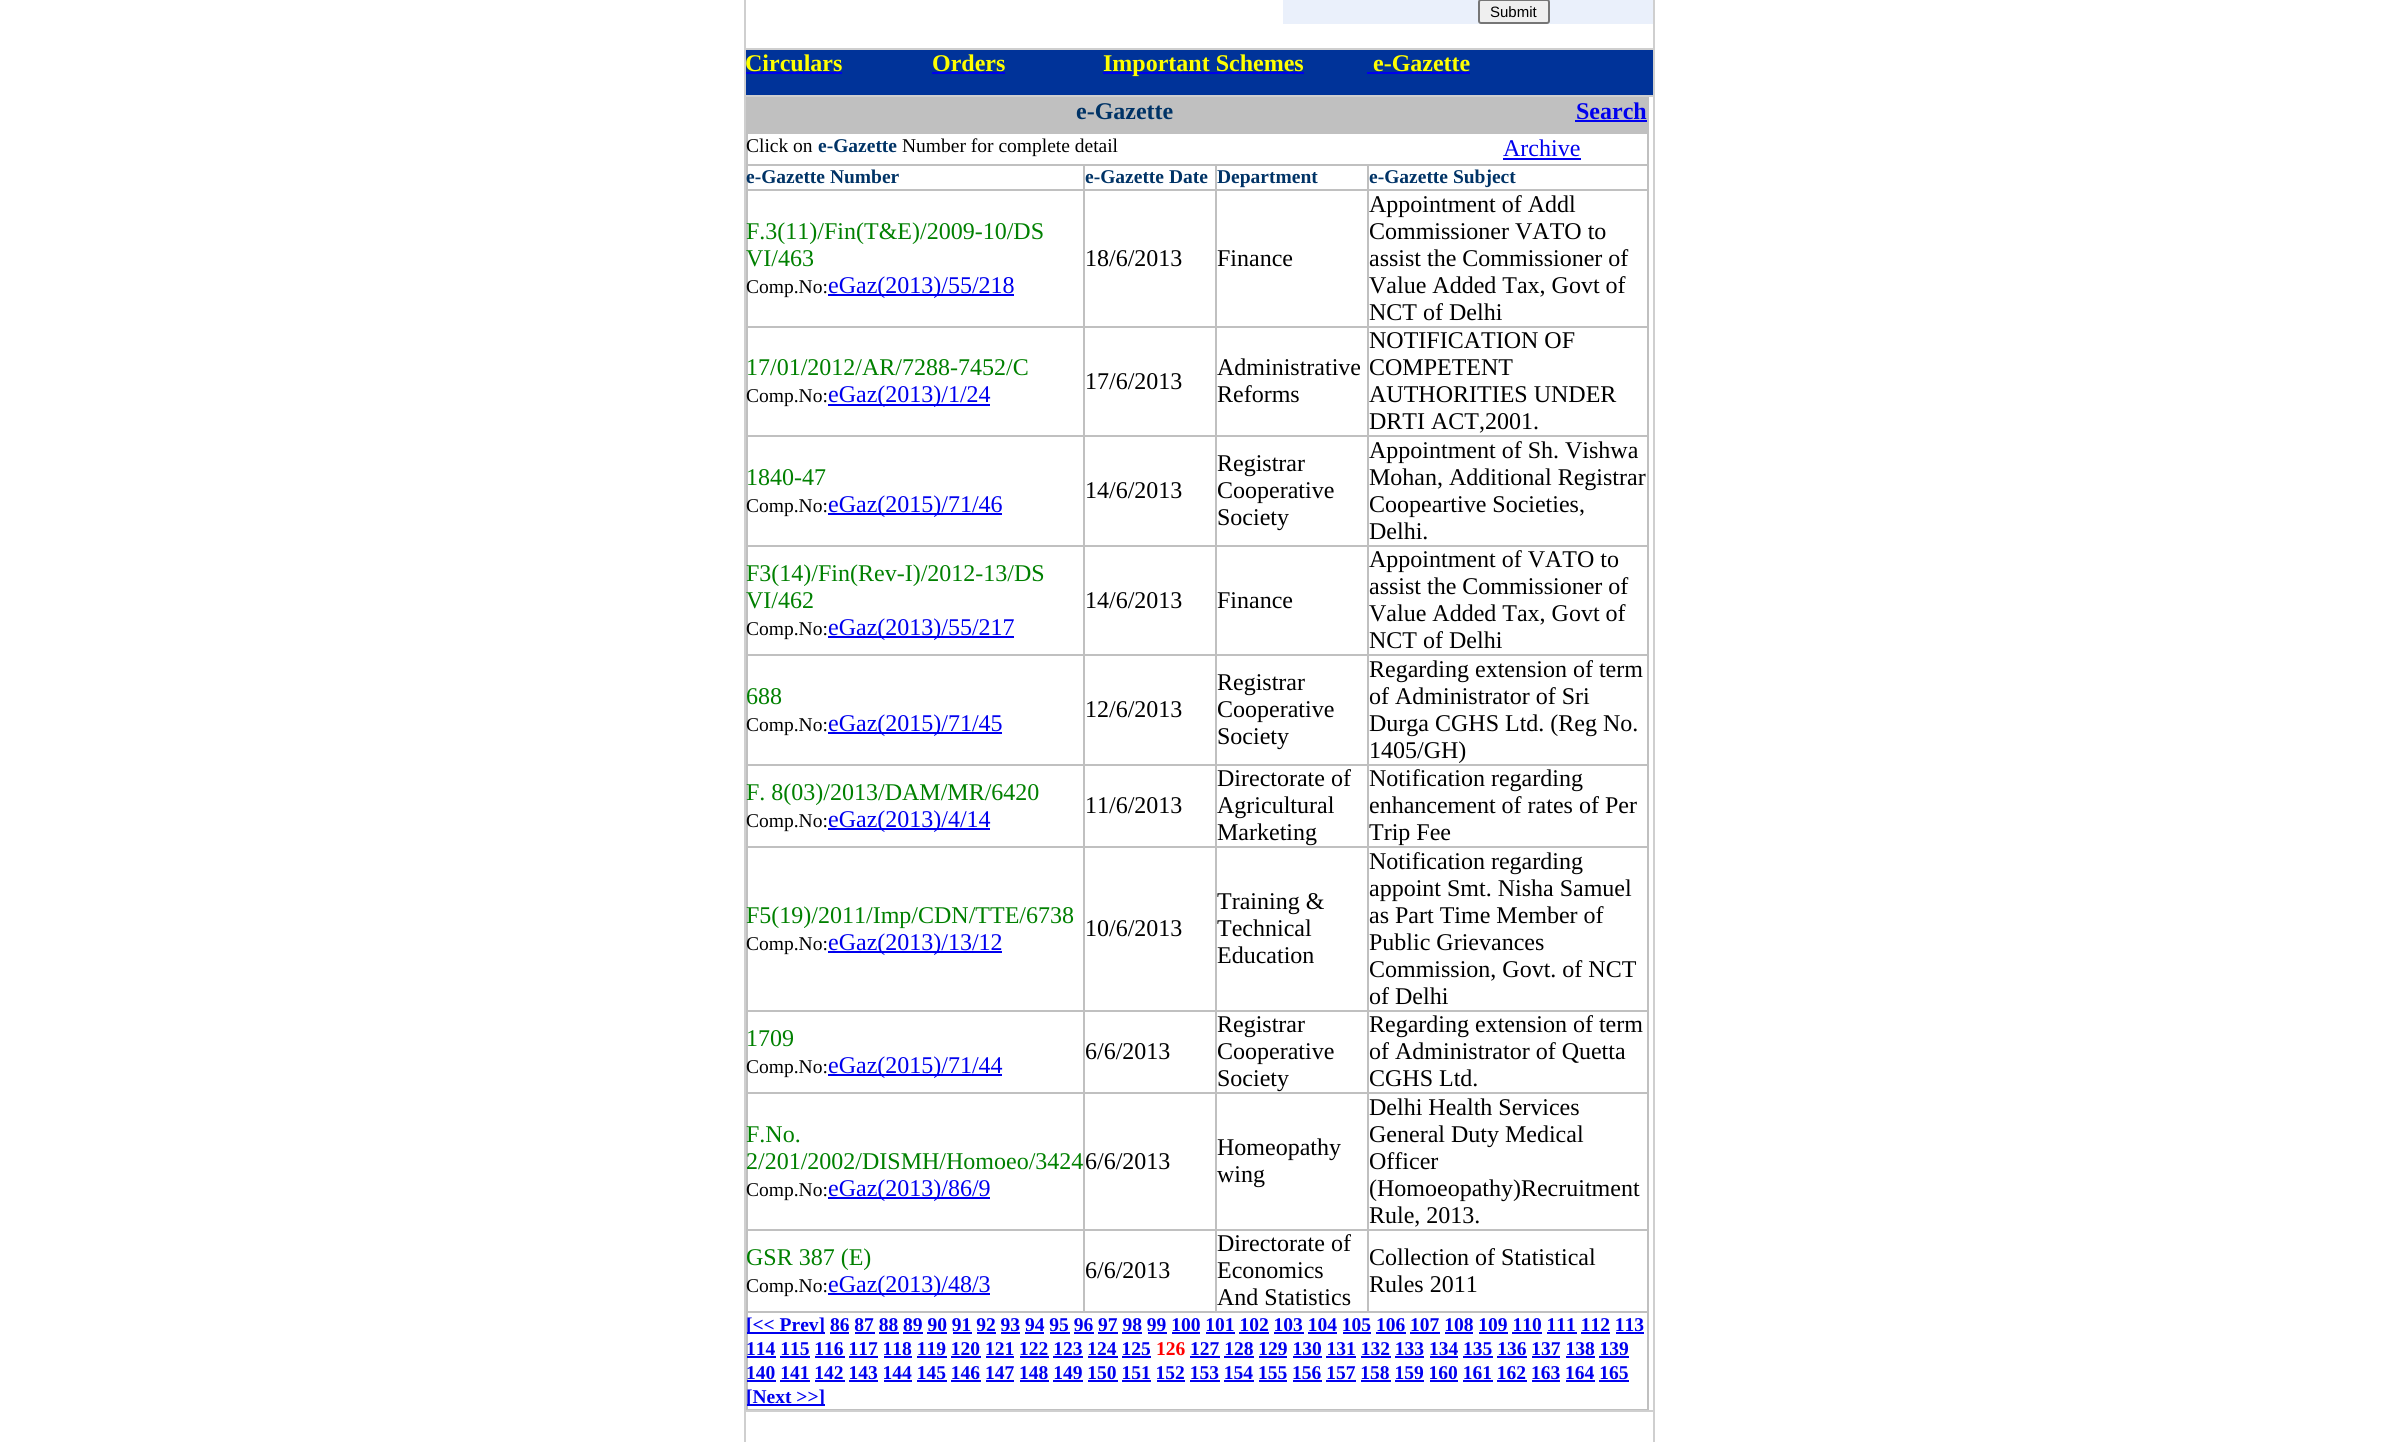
#include <cairo/cairo.h>
#include <math.h>
#include <stddef.h>


static void rounded_rect(cairo_t *cr, double x, double y, double w, double h, double r) {
  cairo_new_sub_path(cr);
  cairo_arc(cr, x + w - r, y + h - r, r, 0, M_PI / 2);
  cairo_arc(cr, x + r, y + h - r, r, M_PI / 2, M_PI);
  cairo_arc(cr, x + r, y + r, r, M_PI, 1.5 * M_PI);
  cairo_arc(cr, x + w - r, y + r, r, 1.5 * M_PI, 2 * M_PI);
  cairo_close_path(cr);
}

static void draw(cairo_t *cr) {
  cairo_set_source_rgb(cr, 1, 1, 1);
  cairo_paint(cr);
  cairo_set_source_rgb(cr, 207 / 255.0, 207 / 255.0, 207 / 255.0);
  cairo_rectangle(cr, 1653, 0, 2, 1442);
  cairo_fill(cr);
  cairo_rectangle(cr, 744, 0, 2, 1442);
  cairo_fill(cr);
  cairo_set_source_rgb(cr, 234 / 255.0, 240 / 255.0, 251 / 255.0);
  cairo_rectangle(cr, 1283, 0, 370, 24);
  cairo_fill(cr);
  cairo_set_source_rgb(cr, 239 / 255.0, 239 / 255.0, 239 / 255.0);
  rounded_rect(cr, 1479, 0, 70, 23, 2);
  cairo_fill_preserve(cr);
  cairo_set_source_rgb(cr, 118 / 255.0, 118 / 255.0, 118 / 255.0);
  cairo_stroke(cr);
  cairo_set_source_rgb(cr, 0, 51 / 255.0, 153 / 255.0);
  cairo_rectangle(cr, 746, 50, 907, 45);
  cairo_fill(cr);
  cairo_set_source_rgb(cr, 0, 0, 238 / 255.0);
  cairo_rectangle(cr, 746, 72, 96, 2);
  cairo_fill(cr);
  cairo_rectangle(cr, 932, 72, 73, 2);
  cairo_fill(cr);
  cairo_rectangle(cr, 1103, 72, 201, 2);
  cairo_fill(cr);
  cairo_set_source_rgb(cr, 207 / 255.0, 207 / 255.0, 207 / 255.0);
  cairo_rectangle(cr, 744, 48, 911, 2);
  cairo_fill(cr);
  cairo_set_source_rgb(cr, 0, 0, 238 / 255.0);
  cairo_rectangle(cr, 1367, 72, 103, 2);
  cairo_fill(cr);
  cairo_set_source_rgb(cr, 192 / 255.0, 192 / 255.0, 192 / 255.0);
  cairo_rectangle(cr, 746, 97, 903, 1);
  cairo_fill(cr);
  cairo_rectangle(cr, 746, 1409, 903, 1);
  cairo_fill(cr);
  cairo_rectangle(cr, 746, 96, 2, 1314);
  cairo_fill(cr);
  cairo_rectangle(cr, 1503, 132, 146, 2);
  cairo_fill(cr);
  cairo_rectangle(cr, 1367, 164, 282, 2);
  cairo_fill(cr);
  cairo_rectangle(cr, 1367, 189, 282, 2);
  cairo_fill(cr);
  cairo_rectangle(cr, 1367, 326, 282, 2);
  cairo_fill(cr);
  cairo_rectangle(cr, 1367, 435, 282, 2);
  cairo_fill(cr);
  cairo_rectangle(cr, 1367, 545, 282, 2);
  cairo_fill(cr);
  cairo_rectangle(cr, 1367, 654, 282, 2);
  cairo_fill(cr);
  cairo_rectangle(cr, 1367, 764, 282, 2);
  cairo_fill(cr);
  cairo_rectangle(cr, 1367, 846, 282, 2);
  cairo_fill(cr);
  cairo_rectangle(cr, 1367, 1010, 282, 2);
  cairo_fill(cr);
  cairo_rectangle(cr, 1367, 1092, 282, 2);
  cairo_fill(cr);
  cairo_rectangle(cr, 1367, 1229, 282, 2);
  cairo_fill(cr);
  cairo_rectangle(cr, 746, 1311, 903, 2);
  cairo_fill(cr);
  cairo_rectangle(cr, 1647, 1311, 2, 99);
  cairo_fill(cr);
  cairo_rectangle(cr, 1647, 1229, 2, 84);
  cairo_fill(cr);
  cairo_rectangle(cr, 1647, 1092, 2, 138);
  cairo_fill(cr);
  cairo_rectangle(cr, 1647, 1010, 2, 84);
  cairo_fill(cr);
  cairo_rectangle(cr, 1647, 846, 2, 165);
  cairo_fill(cr);
  cairo_rectangle(cr, 1647, 764, 2, 84);
  cairo_fill(cr);
  cairo_rectangle(cr, 1647, 654, 2, 111);
  cairo_fill(cr);
  cairo_rectangle(cr, 1647, 545, 2, 111);
  cairo_fill(cr);
  cairo_rectangle(cr, 1647, 435, 2, 111);
  cairo_fill(cr);
  cairo_rectangle(cr, 1647, 326, 2, 111);
  cairo_fill(cr);
  cairo_rectangle(cr, 1647, 189, 2, 138);
  cairo_fill(cr);
  cairo_rectangle(cr, 1647, 164, 2, 27);
  cairo_fill(cr);
  cairo_rectangle(cr, 1647, 96, 2, 69);
  cairo_fill(cr);
  cairo_set_source_rgb(cr, 207 / 255.0, 207 / 255.0, 207 / 255.0);
  cairo_rectangle(cr, 744, 95, 911, 2);
  cairo_fill(cr);
  cairo_set_source_rgb(cr, 192 / 255.0, 192 / 255.0, 192 / 255.0);
  cairo_rectangle(cr, 748, 98, 755, 36);
  cairo_fill(cr);
  cairo_rectangle(cr, 1503, 98, 144, 34);
  cairo_fill(cr);
  cairo_set_source_rgb(cr, 0, 0, 238 / 255.0);
  cairo_rectangle(cr, 1575, 120, 72, 2);
  cairo_fill(cr);
  cairo_rectangle(cr, 1503, 158, 78, 2);
  cairo_fill(cr);
  cairo_set_source_rgb(cr, 192 / 255.0, 192 / 255.0, 192 / 255.0);
  cairo_rectangle(cr, 1367, 1229, 2, 84);
  cairo_fill(cr);
  cairo_rectangle(cr, 1215, 1229, 153, 2);
  cairo_fill(cr);
  cairo_rectangle(cr, 1367, 1092, 2, 138);
  cairo_fill(cr);
  cairo_rectangle(cr, 1215, 1092, 153, 2);
  cairo_fill(cr);
  cairo_rectangle(cr, 1367, 1010, 2, 84);
  cairo_fill(cr);
  cairo_rectangle(cr, 1215, 1010, 153, 2);
  cairo_fill(cr);
  cairo_rectangle(cr, 1367, 846, 2, 165);
  cairo_fill(cr);
  cairo_rectangle(cr, 1215, 846, 153, 2);
  cairo_fill(cr);
  cairo_rectangle(cr, 1367, 764, 2, 84);
  cairo_fill(cr);
  cairo_rectangle(cr, 1215, 764, 153, 2);
  cairo_fill(cr);
  cairo_rectangle(cr, 1367, 654, 2, 111);
  cairo_fill(cr);
  cairo_rectangle(cr, 1215, 654, 153, 2);
  cairo_fill(cr);
  cairo_rectangle(cr, 1367, 545, 2, 111);
  cairo_fill(cr);
  cairo_rectangle(cr, 1215, 545, 153, 2);
  cairo_fill(cr);
  cairo_rectangle(cr, 1367, 435, 2, 111);
  cairo_fill(cr);
  cairo_rectangle(cr, 1215, 435, 153, 2);
  cairo_fill(cr);
  cairo_rectangle(cr, 1367, 326, 2, 111);
  cairo_fill(cr);
  cairo_rectangle(cr, 1215, 326, 153, 2);
  cairo_fill(cr);
  cairo_rectangle(cr, 1367, 189, 2, 138);
  cairo_fill(cr);
  cairo_rectangle(cr, 1215, 189, 153, 2);
  cairo_fill(cr);
  cairo_rectangle(cr, 1367, 164, 2, 27);
  cairo_fill(cr);
  cairo_rectangle(cr, 1215, 164, 153, 2);
  cairo_fill(cr);
  cairo_rectangle(cr, 1215, 1229, 2, 84);
  cairo_fill(cr);
  cairo_rectangle(cr, 1083, 1229, 134, 2);
  cairo_fill(cr);
  cairo_rectangle(cr, 1215, 1092, 2, 138);
  cairo_fill(cr);
  cairo_rectangle(cr, 1083, 1092, 134, 2);
  cairo_fill(cr);
  cairo_rectangle(cr, 1215, 1010, 2, 84);
  cairo_fill(cr);
  cairo_rectangle(cr, 1083, 1010, 134, 2);
  cairo_fill(cr);
  cairo_rectangle(cr, 1215, 846, 2, 165);
  cairo_fill(cr);
  cairo_rectangle(cr, 1083, 846, 134, 2);
  cairo_fill(cr);
  cairo_rectangle(cr, 1215, 764, 2, 84);
  cairo_fill(cr);
  cairo_rectangle(cr, 1083, 764, 134, 2);
  cairo_fill(cr);
  cairo_rectangle(cr, 1215, 654, 2, 111);
  cairo_fill(cr);
  cairo_rectangle(cr, 1083, 654, 134, 2);
  cairo_fill(cr);
  cairo_rectangle(cr, 1215, 545, 2, 111);
  cairo_fill(cr);
  cairo_rectangle(cr, 1083, 545, 134, 2);
  cairo_fill(cr);
  cairo_rectangle(cr, 1215, 435, 2, 111);
  cairo_fill(cr);
  cairo_rectangle(cr, 1083, 435, 134, 2);
  cairo_fill(cr);
  cairo_rectangle(cr, 1215, 326, 2, 111);
  cairo_fill(cr);
  cairo_rectangle(cr, 1083, 326, 134, 2);
  cairo_fill(cr);
  cairo_rectangle(cr, 1215, 189, 2, 138);
  cairo_fill(cr);
  cairo_rectangle(cr, 1083, 189, 134, 2);
  cairo_fill(cr);
  cairo_rectangle(cr, 1215, 164, 2, 27);
  cairo_fill(cr);
  cairo_rectangle(cr, 1083, 164, 134, 2);
  cairo_fill(cr);
  cairo_rectangle(cr, 1083, 1229, 2, 84);
  cairo_fill(cr);
  cairo_rectangle(cr, 746, 1229, 339, 2);
  cairo_fill(cr);
  cairo_rectangle(cr, 1083, 1092, 2, 138);
  cairo_fill(cr);
  cairo_rectangle(cr, 746, 1092, 339, 2);
  cairo_fill(cr);
  cairo_rectangle(cr, 1083, 1010, 2, 84);
  cairo_fill(cr);
  cairo_rectangle(cr, 746, 1010, 339, 2);
  cairo_fill(cr);
  cairo_rectangle(cr, 1083, 846, 2, 165);
  cairo_fill(cr);
  cairo_rectangle(cr, 746, 846, 339, 2);
  cairo_fill(cr);
  cairo_rectangle(cr, 1083, 764, 2, 84);
  cairo_fill(cr);
  cairo_rectangle(cr, 746, 764, 339, 2);
  cairo_fill(cr);
  cairo_rectangle(cr, 1083, 654, 2, 111);
  cairo_fill(cr);
  cairo_rectangle(cr, 746, 654, 339, 2);
  cairo_fill(cr);
  cairo_rectangle(cr, 1083, 545, 2, 111);
  cairo_fill(cr);
  cairo_rectangle(cr, 746, 545, 339, 2);
  cairo_fill(cr);
  cairo_rectangle(cr, 1083, 435, 2, 111);
  cairo_fill(cr);
  cairo_rectangle(cr, 746, 435, 339, 2);
  cairo_fill(cr);
  cairo_rectangle(cr, 1083, 326, 2, 111);
  cairo_fill(cr);
  cairo_rectangle(cr, 746, 326, 339, 2);
  cairo_fill(cr);
  cairo_rectangle(cr, 1083, 189, 2, 138);
  cairo_fill(cr);
  cairo_rectangle(cr, 746, 189, 339, 2);
  cairo_fill(cr);
  cairo_rectangle(cr, 1083, 164, 2, 27);
  cairo_fill(cr);
  cairo_rectangle(cr, 746, 164, 339, 2);
  cairo_fill(cr);
  cairo_set_source_rgb(cr, 0, 0, 238 / 255.0);
  cairo_rectangle(cr, 828, 294, 186, 2);
  cairo_fill(cr);
  cairo_rectangle(cr, 828, 404, 162, 2);
  cairo_fill(cr);
  cairo_rectangle(cr, 828, 513, 174, 2);
  cairo_fill(cr);
  cairo_rectangle(cr, 828, 636, 186, 2);
  cairo_fill(cr);
  cairo_rectangle(cr, 828, 732, 174, 2);
  cairo_fill(cr);
  cairo_rectangle(cr, 828, 828, 162, 2);
  cairo_fill(cr);
  cairo_rectangle(cr, 828, 951, 174, 2);
  cairo_fill(cr);
  cairo_rectangle(cr, 828, 1074, 174, 2);
  cairo_fill(cr);
  cairo_rectangle(cr, 828, 1197, 162, 2);
  cairo_fill(cr);
  cairo_rectangle(cr, 828, 1293, 162, 2);
  cairo_fill(cr);
  cairo_rectangle(cr, 747, 1332, 78, 2);
  cairo_fill(cr);
  cairo_rectangle(cr, 830, 1332, 19, 2);
  cairo_fill(cr);
  cairo_rectangle(cr, 855, 1332, 20, 2);
  cairo_fill(cr);
  cairo_rectangle(cr, 879, 1332, 20, 2);
  cairo_fill(cr);
  cairo_rectangle(cr, 903, 1332, 20, 2);
  cairo_fill(cr);
  cairo_rectangle(cr, 927, 1332, 20, 2);
  cairo_fill(cr);
  cairo_rectangle(cr, 953, 1332, 19, 2);
  cairo_fill(cr);
  cairo_rectangle(cr, 977, 1332, 19, 2);
  cairo_fill(cr);
  cairo_rectangle(cr, 1001, 1332, 19, 2);
  cairo_fill(cr);
  cairo_rectangle(cr, 1025, 1332, 19, 2);
  cairo_fill(cr);
  cairo_rectangle(cr, 1050, 1332, 20, 2);
  cairo_fill(cr);
  cairo_rectangle(cr, 1074, 1332, 20, 2);
  cairo_fill(cr);
  cairo_rectangle(cr, 1098, 1332, 20, 2);
  cairo_fill(cr);
  cairo_rectangle(cr, 1122, 1332, 20, 2);
  cairo_fill(cr);
  cairo_rectangle(cr, 1148, 1332, 19, 2);
  cairo_fill(cr);
  cairo_rectangle(cr, 1172, 1332, 28, 2);
  cairo_fill(cr);
  cairo_rectangle(cr, 1206, 1332, 29, 2);
  cairo_fill(cr);
  cairo_rectangle(cr, 1239, 1332, 30, 2);
  cairo_fill(cr);
  cairo_rectangle(cr, 1274, 1332, 30, 2);
  cairo_fill(cr);
  cairo_rectangle(cr, 1308, 1332, 29, 2);
  cairo_fill(cr);
  cairo_rectangle(cr, 1343, 1332, 28, 2);
  cairo_fill(cr);
  cairo_rectangle(cr, 1376, 1332, 30, 2);
  cairo_fill(cr);
  cairo_rectangle(cr, 1410, 1332, 30, 2);
  cairo_fill(cr);
  cairo_rectangle(cr, 1445, 1332, 28, 2);
  cairo_fill(cr);
  cairo_rectangle(cr, 1479, 1332, 29, 2);
  cairo_fill(cr);
  cairo_rectangle(cr, 1512, 1332, 30, 2);
  cairo_fill(cr);
  cairo_rectangle(cr, 1547, 1332, 30, 2);
  cairo_fill(cr);
  cairo_rectangle(cr, 1581, 1332, 29, 2);
  cairo_fill(cr);
  cairo_rectangle(cr, 1616, 1332, 28, 2);
  cairo_fill(cr);
  cairo_rectangle(cr, 747, 1356, 29, 2);
  cairo_fill(cr);
  cairo_rectangle(cr, 780, 1356, 30, 2);
  cairo_fill(cr);
  cairo_rectangle(cr, 815, 1356, 30, 2);
  cairo_fill(cr);
  cairo_rectangle(cr, 849, 1356, 29, 2);
  cairo_fill(cr);
  cairo_rectangle(cr, 884, 1356, 28, 2);
  cairo_fill(cr);
  cairo_rectangle(cr, 917, 1356, 30, 2);
  cairo_fill(cr);
  cairo_rectangle(cr, 951, 1356, 30, 2);
  cairo_fill(cr);
  cairo_rectangle(cr, 986, 1356, 28, 2);
  cairo_fill(cr);
  cairo_rectangle(cr, 1020, 1356, 29, 2);
  cairo_fill(cr);
  cairo_rectangle(cr, 1053, 1356, 30, 2);
  cairo_fill(cr);
  cairo_rectangle(cr, 1088, 1356, 30, 2);
  cairo_fill(cr);
  cairo_rectangle(cr, 1122, 1356, 29, 2);
  cairo_fill(cr);
  cairo_rectangle(cr, 1190, 1356, 30, 2);
  cairo_fill(cr);
  cairo_rectangle(cr, 1224, 1356, 30, 2);
  cairo_fill(cr);
  cairo_rectangle(cr, 1259, 1356, 28, 2);
  cairo_fill(cr);
  cairo_rectangle(cr, 1293, 1356, 29, 2);
  cairo_fill(cr);
  cairo_rectangle(cr, 1326, 1356, 30, 2);
  cairo_fill(cr);
  cairo_rectangle(cr, 1361, 1356, 30, 2);
  cairo_fill(cr);
  cairo_rectangle(cr, 1395, 1356, 29, 2);
  cairo_fill(cr);
  cairo_rectangle(cr, 1430, 1356, 28, 2);
  cairo_fill(cr);
  cairo_rectangle(cr, 1463, 1356, 30, 2);
  cairo_fill(cr);
  cairo_rectangle(cr, 1497, 1356, 30, 2);
  cairo_fill(cr);
  cairo_rectangle(cr, 1532, 1356, 28, 2);
  cairo_fill(cr);
  cairo_rectangle(cr, 1566, 1356, 29, 2);
  cairo_fill(cr);
  cairo_rectangle(cr, 1599, 1356, 30, 2);
  cairo_fill(cr);
  cairo_rectangle(cr, 747, 1380, 29, 2);
  cairo_fill(cr);
  cairo_rectangle(cr, 780, 1380, 30, 2);
  cairo_fill(cr);
  cairo_rectangle(cr, 815, 1380, 30, 2);
  cairo_fill(cr);
  cairo_rectangle(cr, 849, 1380, 29, 2);
  cairo_fill(cr);
  cairo_rectangle(cr, 884, 1380, 28, 2);
  cairo_fill(cr);
  cairo_rectangle(cr, 917, 1380, 30, 2);
  cairo_fill(cr);
  cairo_rectangle(cr, 951, 1380, 30, 2);
  cairo_fill(cr);
  cairo_rectangle(cr, 986, 1380, 28, 2);
  cairo_fill(cr);
  cairo_rectangle(cr, 1020, 1380, 29, 2);
  cairo_fill(cr);
  cairo_rectangle(cr, 1053, 1380, 30, 2);
  cairo_fill(cr);
  cairo_rectangle(cr, 1088, 1380, 30, 2);
  cairo_fill(cr);
  cairo_rectangle(cr, 1122, 1380, 29, 2);
  cairo_fill(cr);
  cairo_rectangle(cr, 1157, 1380, 28, 2);
  cairo_fill(cr);
  cairo_rectangle(cr, 1190, 1380, 30, 2);
  cairo_fill(cr);
  cairo_rectangle(cr, 1224, 1380, 30, 2);
  cairo_fill(cr);
  cairo_rectangle(cr, 1259, 1380, 28, 2);
  cairo_fill(cr);
  cairo_rectangle(cr, 1293, 1380, 29, 2);
  cairo_fill(cr);
  cairo_rectangle(cr, 1326, 1380, 30, 2);
  cairo_fill(cr);
  cairo_rectangle(cr, 1361, 1380, 30, 2);
  cairo_fill(cr);
  cairo_rectangle(cr, 1395, 1380, 29, 2);
  cairo_fill(cr);
  cairo_rectangle(cr, 1430, 1380, 28, 2);
  cairo_fill(cr);
  cairo_rectangle(cr, 1463, 1380, 30, 2);
  cairo_fill(cr);
  cairo_rectangle(cr, 1497, 1380, 30, 2);
  cairo_fill(cr);
  cairo_rectangle(cr, 1532, 1380, 28, 2);
  cairo_fill(cr);
  cairo_rectangle(cr, 1566, 1380, 29, 2);
  cairo_fill(cr);
  cairo_rectangle(cr, 1599, 1380, 30, 2);
  cairo_fill(cr);
  cairo_rectangle(cr, 747, 1404, 78, 2);
  cairo_fill(cr);
  cairo_set_source_rgb(cr, 207 / 255.0, 207 / 255.0, 207 / 255.0);
  cairo_rectangle(cr, 744, 1410, 911, 2);
  cairo_fill(cr);
  cairo_select_font_face(cr, "Liberation Sans", CAIRO_FONT_SLANT_NORMAL, CAIRO_FONT_WEIGHT_NORMAL);
  cairo_set_font_size(cr, 15);
  cairo_set_source_rgb(cr, 0, 0, 0);
  cairo_move_to(cr, 1490, 17);
  cairo_show_text(cr, "Submit");
  cairo_select_font_face(cr, "Liberation Serif", CAIRO_FONT_SLANT_NORMAL, CAIRO_FONT_WEIGHT_BOLD);
  cairo_set_font_size(cr, 24);
  cairo_set_source_rgb(cr, 1, 1, 0);
  cairo_move_to(cr, 745, 71);
  cairo_show_text(cr, "Circulars");
  cairo_move_to(cr, 932, 71);
  cairo_show_text(cr, "Orders");
  cairo_move_to(cr, 1103, 71);
  cairo_show_text(cr, "Important Schemes");
  cairo_move_to(cr, 1373, 71);
  cairo_show_text(cr, "e-Gazette");
  cairo_set_source_rgb(cr, 0, 51 / 255.0, 102 / 255.0);
  cairo_move_to(cr, 1076, 119);
  cairo_show_text(cr, "e-Gazette");
  cairo_set_source_rgb(cr, 0, 0, 238 / 255.0);
  cairo_move_to(cr, 1576, 119);
  cairo_show_text(cr, "Search");
  cairo_select_font_face(cr, "Liberation Serif", CAIRO_FONT_SLANT_NORMAL, CAIRO_FONT_WEIGHT_NORMAL);
  cairo_set_font_size(cr, 19.5);
  cairo_set_source_rgb(cr, 0, 0, 0);
  cairo_move_to(cr, 746, 152);
  cairo_show_text(cr, "Click on");
  cairo_select_font_face(cr, "Liberation Serif", CAIRO_FONT_SLANT_NORMAL, CAIRO_FONT_WEIGHT_BOLD);
  cairo_set_source_rgb(cr, 0, 51 / 255.0, 102 / 255.0);
  cairo_move_to(cr, 818, 152);
  cairo_show_text(cr, "e-Gazette");
  cairo_select_font_face(cr, "Liberation Serif", CAIRO_FONT_SLANT_NORMAL, CAIRO_FONT_WEIGHT_NORMAL);
  cairo_set_source_rgb(cr, 0, 0, 0);
  cairo_move_to(cr, 902, 152);
  cairo_show_text(cr, "Number for complete detail");
  cairo_set_font_size(cr, 24);
  cairo_set_source_rgb(cr, 0, 0, 238 / 255.0);
  cairo_move_to(cr, 1503, 156);
  cairo_show_text(cr, "Archive");
  cairo_select_font_face(cr, "Liberation Serif", CAIRO_FONT_SLANT_NORMAL, CAIRO_FONT_WEIGHT_BOLD);
  cairo_set_font_size(cr, 19.5);
  cairo_set_source_rgb(cr, 0, 51 / 255.0, 102 / 255.0);
  cairo_move_to(cr, 746, 183);
  cairo_show_text(cr, "e-Gazette Number");
  cairo_move_to(cr, 1085, 183);
  cairo_show_text(cr, "e-Gazette Date");
  cairo_move_to(cr, 1217, 183);
  cairo_show_text(cr, "Department");
  cairo_move_to(cr, 1369, 183);
  cairo_show_text(cr, "e-Gazette Subject");
  cairo_select_font_face(cr, "Liberation Serif", CAIRO_FONT_SLANT_NORMAL, CAIRO_FONT_WEIGHT_NORMAL);
  cairo_set_font_size(cr, 24);
  cairo_set_source_rgb(cr, 0, 128 / 255.0, 0);
  cairo_move_to(cr, 746, 239);
  cairo_show_text(cr, "F.3(11)/Fin(T&E)/2009-10/DS");
  cairo_move_to(cr, 746, 266);
  cairo_show_text(cr, "VI/463");
  cairo_set_font_size(cr, 19.5);
  cairo_set_source_rgb(cr, 0, 0, 0);
  cairo_move_to(cr, 746, 293);
  cairo_show_text(cr, "Comp.No:");
  cairo_set_font_size(cr, 24);
  cairo_set_source_rgb(cr, 0, 0, 238 / 255.0);
  cairo_move_to(cr, 828, 293);
  cairo_show_text(cr, "eGaz(2013)/55/218");
  cairo_set_source_rgb(cr, 0, 0, 0);
  cairo_move_to(cr, 1085, 266);
  cairo_show_text(cr, "18/6/2013");
  cairo_move_to(cr, 1217, 266);
  cairo_show_text(cr, "Finance");
  cairo_move_to(cr, 1369, 212);
  cairo_show_text(cr, "Appointment of Addl");
  cairo_move_to(cr, 1369, 239);
  cairo_show_text(cr, "Commissioner VATO to");
  cairo_move_to(cr, 1369, 266);
  cairo_show_text(cr, "assist the Commissioner of");
  cairo_move_to(cr, 1369, 293);
  cairo_show_text(cr, "Value Added Tax, Govt of");
  cairo_move_to(cr, 1369, 320);
  cairo_show_text(cr, "NCT of Delhi");
  cairo_set_source_rgb(cr, 0, 128 / 255.0, 0);
  cairo_move_to(cr, 746, 375);
  cairo_show_text(cr, "17/01/2012/AR/7288-7452/C");
  cairo_set_font_size(cr, 19.5);
  cairo_set_source_rgb(cr, 0, 0, 0);
  cairo_move_to(cr, 746, 402);
  cairo_show_text(cr, "Comp.No:");
  cairo_set_font_size(cr, 24);
  cairo_set_source_rgb(cr, 0, 0, 238 / 255.0);
  cairo_move_to(cr, 828, 402);
  cairo_show_text(cr, "eGaz(2013)/1/24");
  cairo_set_source_rgb(cr, 0, 0, 0);
  cairo_move_to(cr, 1085, 389);
  cairo_show_text(cr, "17/6/2013");
  cairo_move_to(cr, 1217, 375);
  cairo_show_text(cr, "Administrative");
  cairo_move_to(cr, 1217, 402);
  cairo_show_text(cr, "Reforms");
  cairo_move_to(cr, 1369, 348);
  cairo_show_text(cr, "NOTIFICATION OF");
  cairo_move_to(cr, 1369, 375);
  cairo_show_text(cr, "COMPETENT");
  cairo_move_to(cr, 1369, 402);
  cairo_show_text(cr, "AUTHORITIES UNDER");
  cairo_move_to(cr, 1369, 429);
  cairo_show_text(cr, "DRTI ACT,2001.");
  cairo_set_source_rgb(cr, 0, 128 / 255.0, 0);
  cairo_move_to(cr, 746, 485);
  cairo_show_text(cr, "1840-47");
  cairo_set_font_size(cr, 19.5);
  cairo_set_source_rgb(cr, 0, 0, 0);
  cairo_move_to(cr, 746, 512);
  cairo_show_text(cr, "Comp.No:");
  cairo_set_font_size(cr, 24);
  cairo_set_source_rgb(cr, 0, 0, 238 / 255.0);
  cairo_move_to(cr, 828, 512);
  cairo_show_text(cr, "eGaz(2015)/71/46");
  cairo_set_source_rgb(cr, 0, 0, 0);
  cairo_move_to(cr, 1085, 498);
  cairo_show_text(cr, "14/6/2013");
  cairo_move_to(cr, 1217, 471);
  cairo_show_text(cr, "Registrar");
  cairo_move_to(cr, 1217, 498);
  cairo_show_text(cr, "Cooperative");
  cairo_move_to(cr, 1217, 525);
  cairo_show_text(cr, "Society");
  cairo_move_to(cr, 1369, 458);
  cairo_show_text(cr, "Appointment of Sh. Vishwa");
  cairo_move_to(cr, 1369, 485);
  cairo_show_text(cr, "Mohan, Additional Registrar");
  cairo_move_to(cr, 1369, 512);
  cairo_show_text(cr, "Coopeartive Societies,");
  cairo_move_to(cr, 1369, 539);
  cairo_show_text(cr, "Delhi.");
  cairo_set_source_rgb(cr, 0, 128 / 255.0, 0);
  cairo_move_to(cr, 746, 581);
  cairo_show_text(cr, "F3(14)/Fin(Rev-I)/2012-13/DS");
  cairo_move_to(cr, 746, 608);
  cairo_show_text(cr, "VI/462");
  cairo_set_font_size(cr, 19.5);
  cairo_set_source_rgb(cr, 0, 0, 0);
  cairo_move_to(cr, 746, 635);
  cairo_show_text(cr, "Comp.No:");
  cairo_set_font_size(cr, 24);
  cairo_set_source_rgb(cr, 0, 0, 238 / 255.0);
  cairo_move_to(cr, 828, 635);
  cairo_show_text(cr, "eGaz(2013)/55/217");
  cairo_set_source_rgb(cr, 0, 0, 0);
  cairo_move_to(cr, 1085, 608);
  cairo_show_text(cr, "14/6/2013");
  cairo_move_to(cr, 1217, 608);
  cairo_show_text(cr, "Finance");
  cairo_move_to(cr, 1369, 567);
  cairo_show_text(cr, "Appointment of VATO to");
  cairo_move_to(cr, 1369, 594);
  cairo_show_text(cr, "assist the Commissioner of");
  cairo_move_to(cr, 1369, 621);
  cairo_show_text(cr, "Value Added Tax, Govt of");
  cairo_move_to(cr, 1369, 648);
  cairo_show_text(cr, "NCT of Delhi");
  cairo_set_source_rgb(cr, 0, 128 / 255.0, 0);
  cairo_move_to(cr, 746, 704);
  cairo_show_text(cr, "688");
  cairo_set_font_size(cr, 19.5);
  cairo_set_source_rgb(cr, 0, 0, 0);
  cairo_move_to(cr, 746, 731);
  cairo_show_text(cr, "Comp.No:");
  cairo_set_font_size(cr, 24);
  cairo_set_source_rgb(cr, 0, 0, 238 / 255.0);
  cairo_move_to(cr, 828, 731);
  cairo_show_text(cr, "eGaz(2015)/71/45");
  cairo_set_source_rgb(cr, 0, 0, 0);
  cairo_move_to(cr, 1085, 717);
  cairo_show_text(cr, "12/6/2013");
  cairo_move_to(cr, 1217, 690);
  cairo_show_text(cr, "Registrar");
  cairo_move_to(cr, 1217, 717);
  cairo_show_text(cr, "Cooperative");
  cairo_move_to(cr, 1217, 744);
  cairo_show_text(cr, "Society");
  cairo_move_to(cr, 1369, 677);
  cairo_show_text(cr, "Regarding extension of term");
  cairo_move_to(cr, 1369, 704);
  cairo_show_text(cr, "of Administrator of Sri");
  cairo_move_to(cr, 1369, 731);
  cairo_show_text(cr, "Durga CGHS Ltd. (Reg No.");
  cairo_move_to(cr, 1369, 758);
  cairo_show_text(cr, "1405/GH)");
  cairo_set_source_rgb(cr, 0, 128 / 255.0, 0);
  cairo_move_to(cr, 746, 800);
  cairo_show_text(cr, "F. 8(03)/2013/DAM/MR/6420");
  cairo_set_font_size(cr, 19.5);
  cairo_set_source_rgb(cr, 0, 0, 0);
  cairo_move_to(cr, 746, 827);
  cairo_show_text(cr, "Comp.No:");
  cairo_set_font_size(cr, 24);
  cairo_set_source_rgb(cr, 0, 0, 238 / 255.0);
  cairo_move_to(cr, 828, 827);
  cairo_show_text(cr, "eGaz(2013)/4/14");
  cairo_set_source_rgb(cr, 0, 0, 0);
  cairo_move_to(cr, 1085, 813);
  cairo_show_text(cr, "11/6/2013");
  cairo_move_to(cr, 1217, 786);
  cairo_show_text(cr, "Directorate of");
  cairo_move_to(cr, 1217, 813);
  cairo_show_text(cr, "Agricultural");
  cairo_move_to(cr, 1217, 840);
  cairo_show_text(cr, "Marketing");
  cairo_move_to(cr, 1369, 786);
  cairo_show_text(cr, "Notification regarding");
  cairo_move_to(cr, 1369, 813);
  cairo_show_text(cr, "enhancement of rates of Per");
  cairo_move_to(cr, 1369, 840);
  cairo_show_text(cr, "Trip Fee");
  cairo_set_source_rgb(cr, 0, 128 / 255.0, 0);
  cairo_move_to(cr, 746, 923);
  cairo_show_text(cr, "F5(19)/2011/Imp/CDN/TTE/6738");
  cairo_set_font_size(cr, 19.5);
  cairo_set_source_rgb(cr, 0, 0, 0);
  cairo_move_to(cr, 746, 950);
  cairo_show_text(cr, "Comp.No:");
  cairo_set_font_size(cr, 24);
  cairo_set_source_rgb(cr, 0, 0, 238 / 255.0);
  cairo_move_to(cr, 828, 950);
  cairo_show_text(cr, "eGaz(2013)/13/12");
  cairo_set_source_rgb(cr, 0, 0, 0);
  cairo_move_to(cr, 1085, 936);
  cairo_show_text(cr, "10/6/2013");
  cairo_move_to(cr, 1217, 909);
  cairo_show_text(cr, "Training &");
  cairo_move_to(cr, 1217, 936);
  cairo_show_text(cr, "Technical");
  cairo_move_to(cr, 1217, 963);
  cairo_show_text(cr, "Education");
  cairo_move_to(cr, 1369, 869);
  cairo_show_text(cr, "Notification regarding");
  cairo_move_to(cr, 1369, 896);
  cairo_show_text(cr, "appoint Smt. Nisha Samuel");
  cairo_move_to(cr, 1369, 923);
  cairo_show_text(cr, "as Part Time Member of");
  cairo_move_to(cr, 1369, 950);
  cairo_show_text(cr, "Public Grievances");
  cairo_move_to(cr, 1369, 977);
  cairo_show_text(cr, "Commission, Govt. of NCT");
  cairo_move_to(cr, 1369, 1004);
  cairo_show_text(cr, "of Delhi");
  cairo_set_source_rgb(cr, 0, 128 / 255.0, 0);
  cairo_move_to(cr, 746, 1046);
  cairo_show_text(cr, "1709");
  cairo_set_font_size(cr, 19.5);
  cairo_set_source_rgb(cr, 0, 0, 0);
  cairo_move_to(cr, 746, 1073);
  cairo_show_text(cr, "Comp.No:");
  cairo_set_font_size(cr, 24);
  cairo_set_source_rgb(cr, 0, 0, 238 / 255.0);
  cairo_move_to(cr, 828, 1073);
  cairo_show_text(cr, "eGaz(2015)/71/44");
  cairo_set_source_rgb(cr, 0, 0, 0);
  cairo_move_to(cr, 1085, 1059);
  cairo_show_text(cr, "6/6/2013");
  cairo_move_to(cr, 1217, 1032);
  cairo_show_text(cr, "Registrar");
  cairo_move_to(cr, 1217, 1059);
  cairo_show_text(cr, "Cooperative");
  cairo_move_to(cr, 1217, 1086);
  cairo_show_text(cr, "Society");
  cairo_move_to(cr, 1369, 1032);
  cairo_show_text(cr, "Regarding extension of term");
  cairo_move_to(cr, 1369, 1059);
  cairo_show_text(cr, "of Administrator of Quetta");
  cairo_move_to(cr, 1369, 1086);
  cairo_show_text(cr, "CGHS Ltd.");
  cairo_set_source_rgb(cr, 0, 128 / 255.0, 0);
  cairo_move_to(cr, 746, 1142);
  cairo_show_text(cr, "F.No.");
  cairo_move_to(cr, 746, 1169);
  cairo_show_text(cr, "2/201/2002/DISMH/Homoeo/3424");
  cairo_set_font_size(cr, 19.5);
  cairo_set_source_rgb(cr, 0, 0, 0);
  cairo_move_to(cr, 746, 1196);
  cairo_show_text(cr, "Comp.No:");
  cairo_set_font_size(cr, 24);
  cairo_set_source_rgb(cr, 0, 0, 238 / 255.0);
  cairo_move_to(cr, 828, 1196);
  cairo_show_text(cr, "eGaz(2013)/86/9");
  cairo_set_source_rgb(cr, 0, 0, 0);
  cairo_move_to(cr, 1085, 1169);
  cairo_show_text(cr, "6/6/2013");
  cairo_move_to(cr, 1217, 1155);
  cairo_show_text(cr, "Homeopathy");
  cairo_move_to(cr, 1217, 1182);
  cairo_show_text(cr, "wing");
  cairo_move_to(cr, 1369, 1115);
  cairo_show_text(cr, "Delhi Health Services");
  cairo_move_to(cr, 1369, 1142);
  cairo_show_text(cr, "General Duty Medical");
  cairo_move_to(cr, 1369, 1169);
  cairo_show_text(cr, "Officer");
  cairo_move_to(cr, 1369, 1196);
  cairo_show_text(cr, "(Homoeopathy)Recruitment");
  cairo_move_to(cr, 1369, 1223);
  cairo_show_text(cr, "Rule, 2013.");
  cairo_set_source_rgb(cr, 0, 128 / 255.0, 0);
  cairo_move_to(cr, 746, 1265);
  cairo_show_text(cr, "GSR 387 (E)");
  cairo_set_font_size(cr, 19.5);
  cairo_set_source_rgb(cr, 0, 0, 0);
  cairo_move_to(cr, 746, 1292);
  cairo_show_text(cr, "Comp.No:");
  cairo_set_font_size(cr, 24);
  cairo_set_source_rgb(cr, 0, 0, 238 / 255.0);
  cairo_move_to(cr, 828, 1292);
  cairo_show_text(cr, "eGaz(2013)/48/3");
  cairo_set_source_rgb(cr, 0, 0, 0);
  cairo_move_to(cr, 1085, 1278);
  cairo_show_text(cr, "6/6/2013");
  cairo_move_to(cr, 1217, 1251);
  cairo_show_text(cr, "Directorate of");
  cairo_move_to(cr, 1217, 1278);
  cairo_show_text(cr, "Economics");
  cairo_move_to(cr, 1217, 1305);
  cairo_show_text(cr, "And Statistics");
  cairo_move_to(cr, 1369, 1265);
  cairo_show_text(cr, "Collection of Statistical");
  cairo_move_to(cr, 1369, 1292);
  cairo_show_text(cr, "Rules 2011");
  cairo_select_font_face(cr, "Liberation Serif", CAIRO_FONT_SLANT_NORMAL, CAIRO_FONT_WEIGHT_BOLD);
  cairo_set_font_size(cr, 19.5);
  cairo_set_source_rgb(cr, 0, 0, 238 / 255.0);
  cairo_move_to(cr, 746, 1331);
  cairo_show_text(cr, "[<< Prev] 86 87 88 89 90 91 92 93 94 95 96 97 98 99 100 101 102 103 104 105 106 107 108 109 110 111 112 113");
  cairo_move_to(cr, 746, 1355);
  cairo_show_text(cr, "114 115 116 117 118 119 120 121 122 123 124 125");
  cairo_set_source_rgb(cr, 1, 0, 0);
  cairo_move_to(cr, 1156, 1355);
  cairo_show_text(cr, "126");
  cairo_set_source_rgb(cr, 0, 0, 238 / 255.0);
  cairo_move_to(cr, 1190, 1355);
  cairo_show_text(cr, "127 128 129 130 131 132 133 134 135 136 137 138 139");
  cairo_move_to(cr, 746, 1379);
  cairo_show_text(cr, "140 141 142 143 144 145 146 147 148 149 150 151 152 153 154 155 156 157 158 159 160 161 162 163 164 165");
  cairo_move_to(cr, 746, 1403);
  cairo_show_text(cr, "[Next >>]");
}

int main(void) {
  cairo_surface_t *surface = cairo_image_surface_create(CAIRO_FORMAT_RGB24, 2396, 1442);
  cairo_t *cr = cairo_create(surface);
  cairo_font_options_t *options = cairo_font_options_create();
  cairo_font_options_set_hint_metrics(options, CAIRO_HINT_METRICS_OFF);
  cairo_font_options_set_hint_style(options, CAIRO_HINT_STYLE_NONE);
  cairo_set_font_options(cr, options);
  cairo_set_miter_limit(cr, 4);
  draw(cr);
  cairo_surface_write_to_png(surface, "out.png");
  cairo_font_options_destroy(options);
  cairo_destroy(cr);
  cairo_surface_destroy(surface);
  return 0;
}
